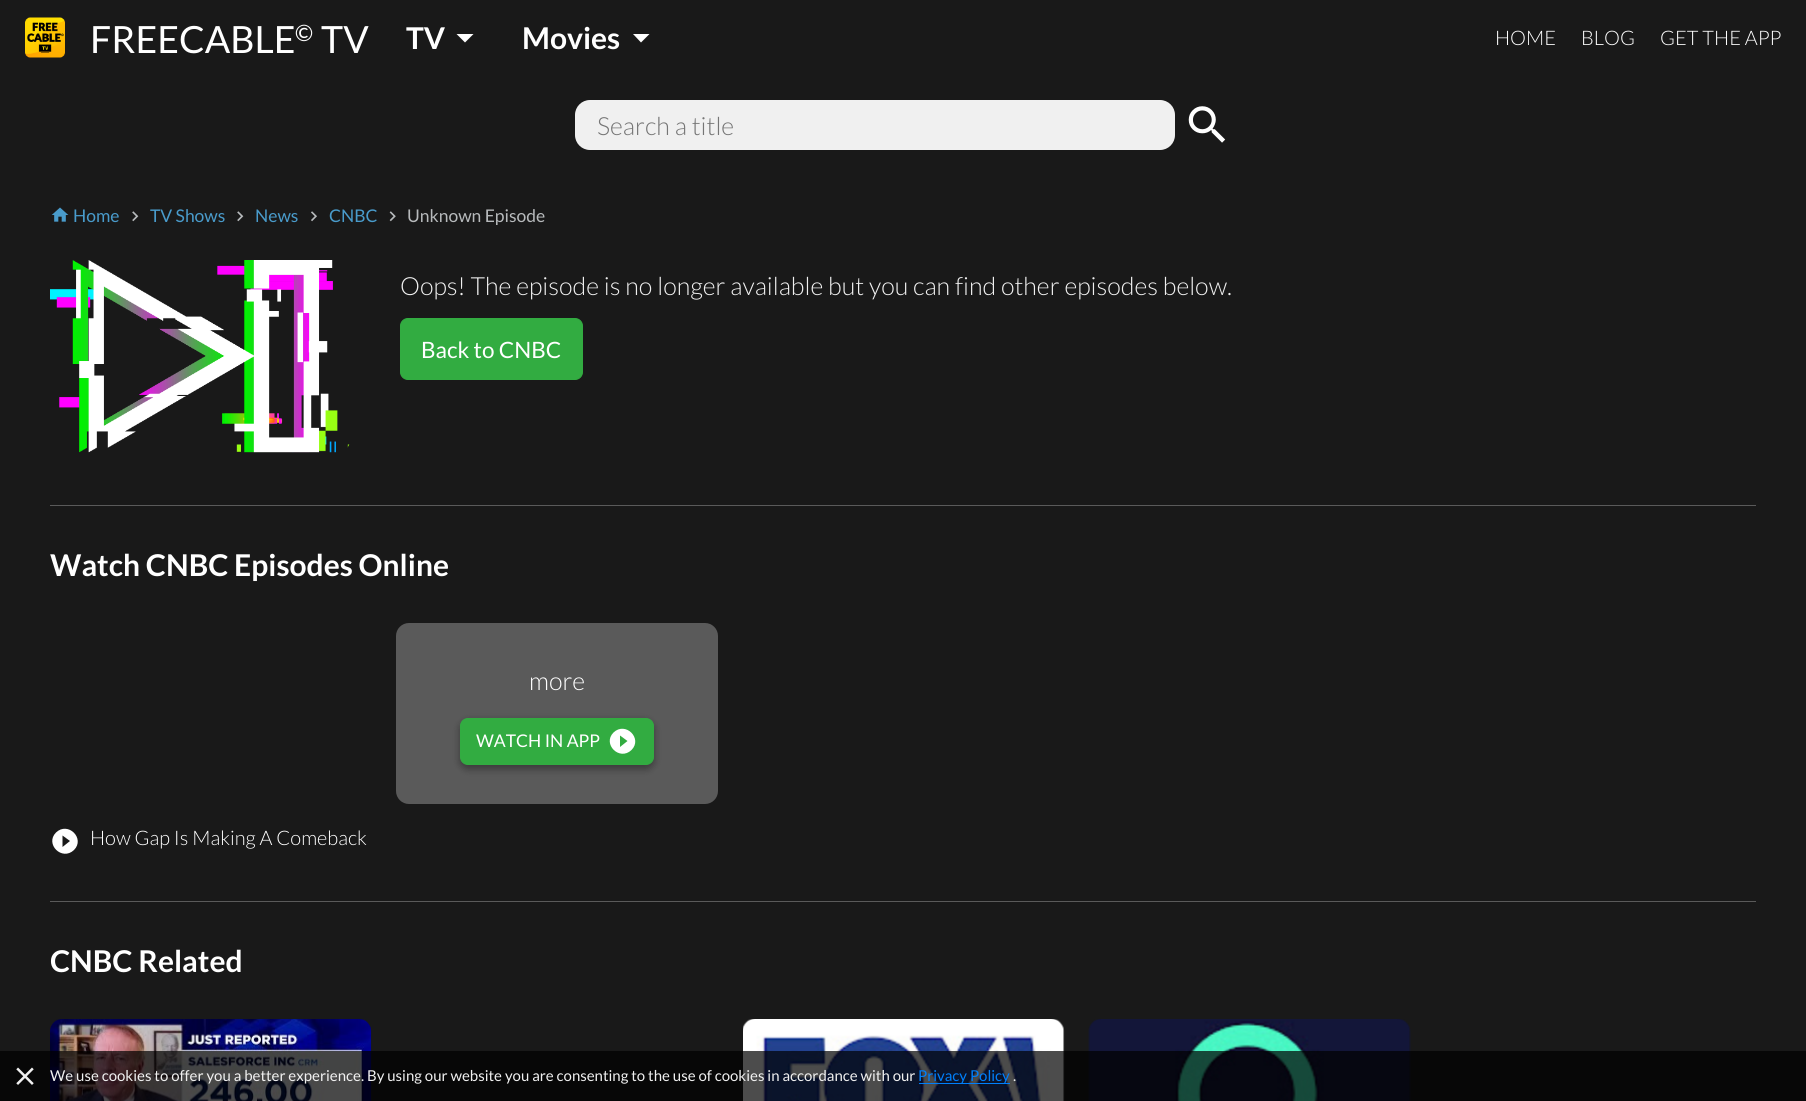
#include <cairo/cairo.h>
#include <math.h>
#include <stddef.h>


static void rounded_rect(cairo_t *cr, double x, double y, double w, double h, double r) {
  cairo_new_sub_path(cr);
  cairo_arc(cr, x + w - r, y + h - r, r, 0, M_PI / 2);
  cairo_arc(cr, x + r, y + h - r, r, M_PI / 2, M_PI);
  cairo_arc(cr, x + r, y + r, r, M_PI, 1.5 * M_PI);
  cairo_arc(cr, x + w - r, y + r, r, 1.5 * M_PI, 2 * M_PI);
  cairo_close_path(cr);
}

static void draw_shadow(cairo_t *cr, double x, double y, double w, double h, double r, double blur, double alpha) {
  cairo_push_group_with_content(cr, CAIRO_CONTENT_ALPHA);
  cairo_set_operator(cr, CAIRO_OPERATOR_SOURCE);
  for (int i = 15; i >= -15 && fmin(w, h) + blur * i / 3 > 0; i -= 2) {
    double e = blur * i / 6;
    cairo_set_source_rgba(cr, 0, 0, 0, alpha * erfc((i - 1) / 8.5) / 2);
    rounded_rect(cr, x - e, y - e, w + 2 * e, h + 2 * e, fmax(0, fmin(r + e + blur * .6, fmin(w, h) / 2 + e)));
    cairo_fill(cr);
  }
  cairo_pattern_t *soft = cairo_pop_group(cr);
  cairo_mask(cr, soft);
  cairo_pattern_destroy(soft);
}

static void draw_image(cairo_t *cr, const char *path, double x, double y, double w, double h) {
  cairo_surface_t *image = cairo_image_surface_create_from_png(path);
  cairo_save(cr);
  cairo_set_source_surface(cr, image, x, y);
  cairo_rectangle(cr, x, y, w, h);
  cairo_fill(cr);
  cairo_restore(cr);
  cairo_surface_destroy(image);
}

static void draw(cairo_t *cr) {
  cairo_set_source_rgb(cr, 25 / 255.0, 25 / 255.0, 25 / 255.0);
  cairo_paint(cr);
  draw_image(cr, "images/1.png", 25, 17, 40, 41);
  cairo_set_source_rgb(cr, 1, 1, 1);
  cairo_new_path(cr);
  cairo_move_to(cr, 456.5, 34);
  cairo_line_to(cr, 473.5, 34);
  cairo_line_to(cr, 465, 42.5);
  cairo_close_path(cr);
  cairo_fill(cr);
  cairo_new_path(cr);
  cairo_move_to(cr, 633, 34);
  cairo_line_to(cr, 649.5, 34);
  cairo_line_to(cr, 641, 42.5);
  cairo_close_path(cr);
  cairo_fill(cr);
  cairo_set_source_rgb(cr, 240 / 255.0, 240 / 255.0, 240 / 255.0);
  rounded_rect(cr, 575, 100, 600, 50, 15);
  cairo_fill(cr);
  draw_image(cr, "images/2.png", 1188, 106, 38, 37);
  draw_image(cr, "images/3.png", 51, 207, 18, 15);
  draw_image(cr, "images/4.png", 132, 211, 7, 11);
  draw_image(cr, "images/4.png", 237, 211, 7, 11);
  draw_image(cr, "images/5.png", 311, 211, 6, 11);
  draw_image(cr, "images/6.png", 389, 211, 7, 11);
  draw_image(cr, "images/7.png", 50, 260, 300, 193);
  cairo_set_source_rgb(cr, 50 / 255.0, 172 / 255.0, 65 / 255.0);
  rounded_rect(cr, 400.5, 318.5, 182, 61, 7.5);
  cairo_fill_preserve(cr);
  cairo_set_line_width(cr, 1);
  cairo_stroke(cr);
  cairo_set_source_rgb(cr, 90 / 255.0, 90 / 255.0, 90 / 255.0);
  cairo_rectangle(cr, 50, 505, 1706, 1);
  cairo_fill(cr);
  rounded_rect(cr, 396, 623, 322, 181, 13);
  cairo_fill(cr);
  cairo_set_source_rgb(cr, 0, 0, 0);
  draw_shadow(cr, 460, 721, 194, 48, 8, 4, 0.23);
  draw_shadow(cr, 460, 721, 194, 48, 8, 4, 0.16);
  cairo_set_source_rgb(cr, 50 / 255.0, 172 / 255.0, 65 / 255.0);
  rounded_rect(cr, 460.5, 718.5, 193, 46, 7.5);
  cairo_fill_preserve(cr);
  cairo_stroke(cr);
  cairo_set_source_rgb(cr, 1, 1, 1);
  cairo_new_path(cr);
  cairo_move_to(cr, 620, 747);
  cairo_line_to(cr, 627.5, 741);
  cairo_line_to(cr, 620, 735.5);
  cairo_close_path(cr);
  cairo_move_to(cr, 613.5, 732.5);
  cairo_curve_to(cr, 625.5, 721, 643, 738.5, 631.5, 750);
  cairo_curve_to(cr, 619.5, 761.5, 602, 744, 613.5, 732.5);
  cairo_close_path(cr);
  cairo_fill(cr);
  cairo_new_path(cr);
  cairo_move_to(cr, 62.5, 847);
  cairo_line_to(cr, 70, 841);
  cairo_line_to(cr, 62.5, 835.5);
  cairo_close_path(cr);
  cairo_move_to(cr, 56, 832.5);
  cairo_curve_to(cr, 68, 821, 85.5, 838.5, 74, 850);
  cairo_curve_to(cr, 62, 861.5, 44.5, 844, 56, 832.5);
  cairo_close_path(cr);
  cairo_fill(cr);
  cairo_set_source_rgb(cr, 90 / 255.0, 90 / 255.0, 90 / 255.0);
  cairo_rectangle(cr, 50, 901, 1706, 1);
  cairo_fill(cr);
  draw_image(cr, "images/8.png", 50, 1019, 322, 82);
  draw_image(cr, "images/9.png", 743, 1019, 322, 82);
  draw_image(cr, "images/10.png", 1088, 1019, 323, 82);
  cairo_set_source_rgba(cr, 0, 0, 0, 0.7);
  cairo_rectangle(cr, 0, 1051, 1806, 50);
  cairo_fill(cr);
  draw_image(cr, "images/11.png", 16, 1067, 18, 18);
  cairo_set_source_rgb(cr, 0, 127 / 255.0, 251 / 255.0);
  cairo_rectangle(cr, 919, 1083, 91, 1);
  cairo_fill(cr);
  cairo_select_font_face(cr, "Lato", CAIRO_FONT_SLANT_NORMAL, CAIRO_FONT_WEIGHT_NORMAL);
  cairo_set_font_size(cr, 37.5);
  cairo_set_source_rgb(cr, 1, 1, 1);
  cairo_move_to(cr, 90, 53);
  cairo_show_text(cr, "FREECABLE");
  cairo_set_font_size(cr, 22.5);
  cairo_move_to(cr, 295, 41);
  cairo_show_text(cr, "©");
  cairo_set_font_size(cr, 37.5);
  cairo_move_to(cr, 321, 53);
  cairo_show_text(cr, "TV");
  cairo_select_font_face(cr, "Lato", CAIRO_FONT_SLANT_NORMAL, CAIRO_FONT_WEIGHT_BOLD);
  cairo_set_font_size(cr, 30);
  cairo_move_to(cr, 406, 49);
  cairo_show_text(cr, "TV");
  cairo_move_to(cr, 522, 49);
  cairo_show_text(cr, "Movies");
  cairo_select_font_face(cr, "Lato Light", CAIRO_FONT_SLANT_NORMAL, CAIRO_FONT_WEIGHT_NORMAL);
  cairo_set_font_size(cr, 20);
  cairo_move_to(cr, 1495, 45);
  cairo_show_text(cr, "HOME");
  cairo_move_to(cr, 1581, 45);
  cairo_show_text(cr, "BLOG");
  cairo_move_to(cr, 1660, 45);
  cairo_show_text(cr, "GET THE APP");
  cairo_set_font_size(cr, 25);
  cairo_set_source_rgb(cr, 117 / 255.0, 117 / 255.0, 117 / 255.0);
  cairo_move_to(cr, 597, 135);
  cairo_show_text(cr, "Search a title");
  cairo_select_font_face(cr, "Lato", CAIRO_FONT_SLANT_NORMAL, CAIRO_FONT_WEIGHT_NORMAL);
  cairo_set_font_size(cr, 17.5);
  cairo_set_source_rgb(cr, 73 / 255.0, 155 / 255.0, 203 / 255.0);
  cairo_move_to(cr, 73, 222);
  cairo_show_text(cr, "Home");
  cairo_move_to(cr, 150, 222);
  cairo_show_text(cr, "TV Shows");
  cairo_move_to(cr, 255, 222);
  cairo_show_text(cr, "News");
  cairo_move_to(cr, 329, 222);
  cairo_show_text(cr, "CNBC");
  cairo_set_source_rgb(cr, 183 / 255.0, 186 / 255.0, 188 / 255.0);
  cairo_move_to(cr, 407, 222);
  cairo_show_text(cr, "Unknown Episode");
  cairo_select_font_face(cr, "Lato Light", CAIRO_FONT_SLANT_NORMAL, CAIRO_FONT_WEIGHT_NORMAL);
  cairo_set_font_size(cr, 25);
  cairo_set_source_rgb(cr, 240 / 255.0, 240 / 255.0, 240 / 255.0);
  cairo_move_to(cr, 400, 295);
  cairo_show_text(cr, "Oops! The episode is no longer available but you can find other episodes below.");
  cairo_select_font_face(cr, "Lato", CAIRO_FONT_SLANT_NORMAL, CAIRO_FONT_WEIGHT_NORMAL);
  cairo_set_font_size(cr, 22.5);
  cairo_set_source_rgb(cr, 1, 1, 1);
  cairo_move_to(cr, 421, 358);
  cairo_show_text(cr, "Back to CNBC");
  cairo_select_font_face(cr, "Lato", CAIRO_FONT_SLANT_NORMAL, CAIRO_FONT_WEIGHT_BOLD);
  cairo_set_font_size(cr, 30);
  cairo_move_to(cr, 50, 576);
  cairo_show_text(cr, "Watch CNBC Episodes Online");
  cairo_select_font_face(cr, "Lato Light", CAIRO_FONT_SLANT_NORMAL, CAIRO_FONT_WEIGHT_NORMAL);
  cairo_set_font_size(cr, 25);
  cairo_move_to(cr, 529, 690);
  cairo_show_text(cr, "more");
  cairo_select_font_face(cr, "Lato", CAIRO_FONT_SLANT_NORMAL, CAIRO_FONT_WEIGHT_NORMAL);
  cairo_set_font_size(cr, 17.5);
  cairo_move_to(cr, 476, 747);
  cairo_show_text(cr, "WATCH IN APP");
  cairo_select_font_face(cr, "Lato Light", CAIRO_FONT_SLANT_NORMAL, CAIRO_FONT_WEIGHT_NORMAL);
  cairo_set_font_size(cr, 20);
  cairo_move_to(cr, 90, 845);
  cairo_show_text(cr, "How Gap Is Making A Comeback");
  cairo_select_font_face(cr, "Lato", CAIRO_FONT_SLANT_NORMAL, CAIRO_FONT_WEIGHT_BOLD);
  cairo_set_font_size(cr, 30);
  cairo_move_to(cr, 50, 972);
  cairo_show_text(cr, "CNBC Related");
  cairo_select_font_face(cr, "Lato", CAIRO_FONT_SLANT_NORMAL, CAIRO_FONT_WEIGHT_NORMAL);
  cairo_set_font_size(cr, 15);
  cairo_set_source_rgb(cr, 240 / 255.0, 240 / 255.0, 240 / 255.0);
  cairo_move_to(cr, 50, 1081);
  cairo_show_text(cr, "We use cookies to offer you a better experience. By using our website you are consenting to the use of cookies in accordance with our");
  cairo_set_source_rgb(cr, 0, 127 / 255.0, 251 / 255.0);
  cairo_move_to(cr, 918, 1081);
  cairo_show_text(cr, "Privacy Policy");
  cairo_set_source_rgb(cr, 240 / 255.0, 240 / 255.0, 240 / 255.0);
  cairo_move_to(cr, 1013, 1081);
  cairo_show_text(cr, ".");
}

int main(void) {
  cairo_surface_t *surface = cairo_image_surface_create(CAIRO_FORMAT_RGB24, 1806, 1101);
  cairo_t *cr = cairo_create(surface);
  cairo_font_options_t *options = cairo_font_options_create();
  cairo_font_options_set_hint_metrics(options, CAIRO_HINT_METRICS_OFF);
  cairo_font_options_set_hint_style(options, CAIRO_HINT_STYLE_NONE);
  cairo_set_font_options(cr, options);
  cairo_set_miter_limit(cr, 4);
  draw(cr);
  cairo_surface_write_to_png(surface, "out.png");
  cairo_font_options_destroy(options);
  cairo_destroy(cr);
  cairo_surface_destroy(surface);
  return 0;
}
